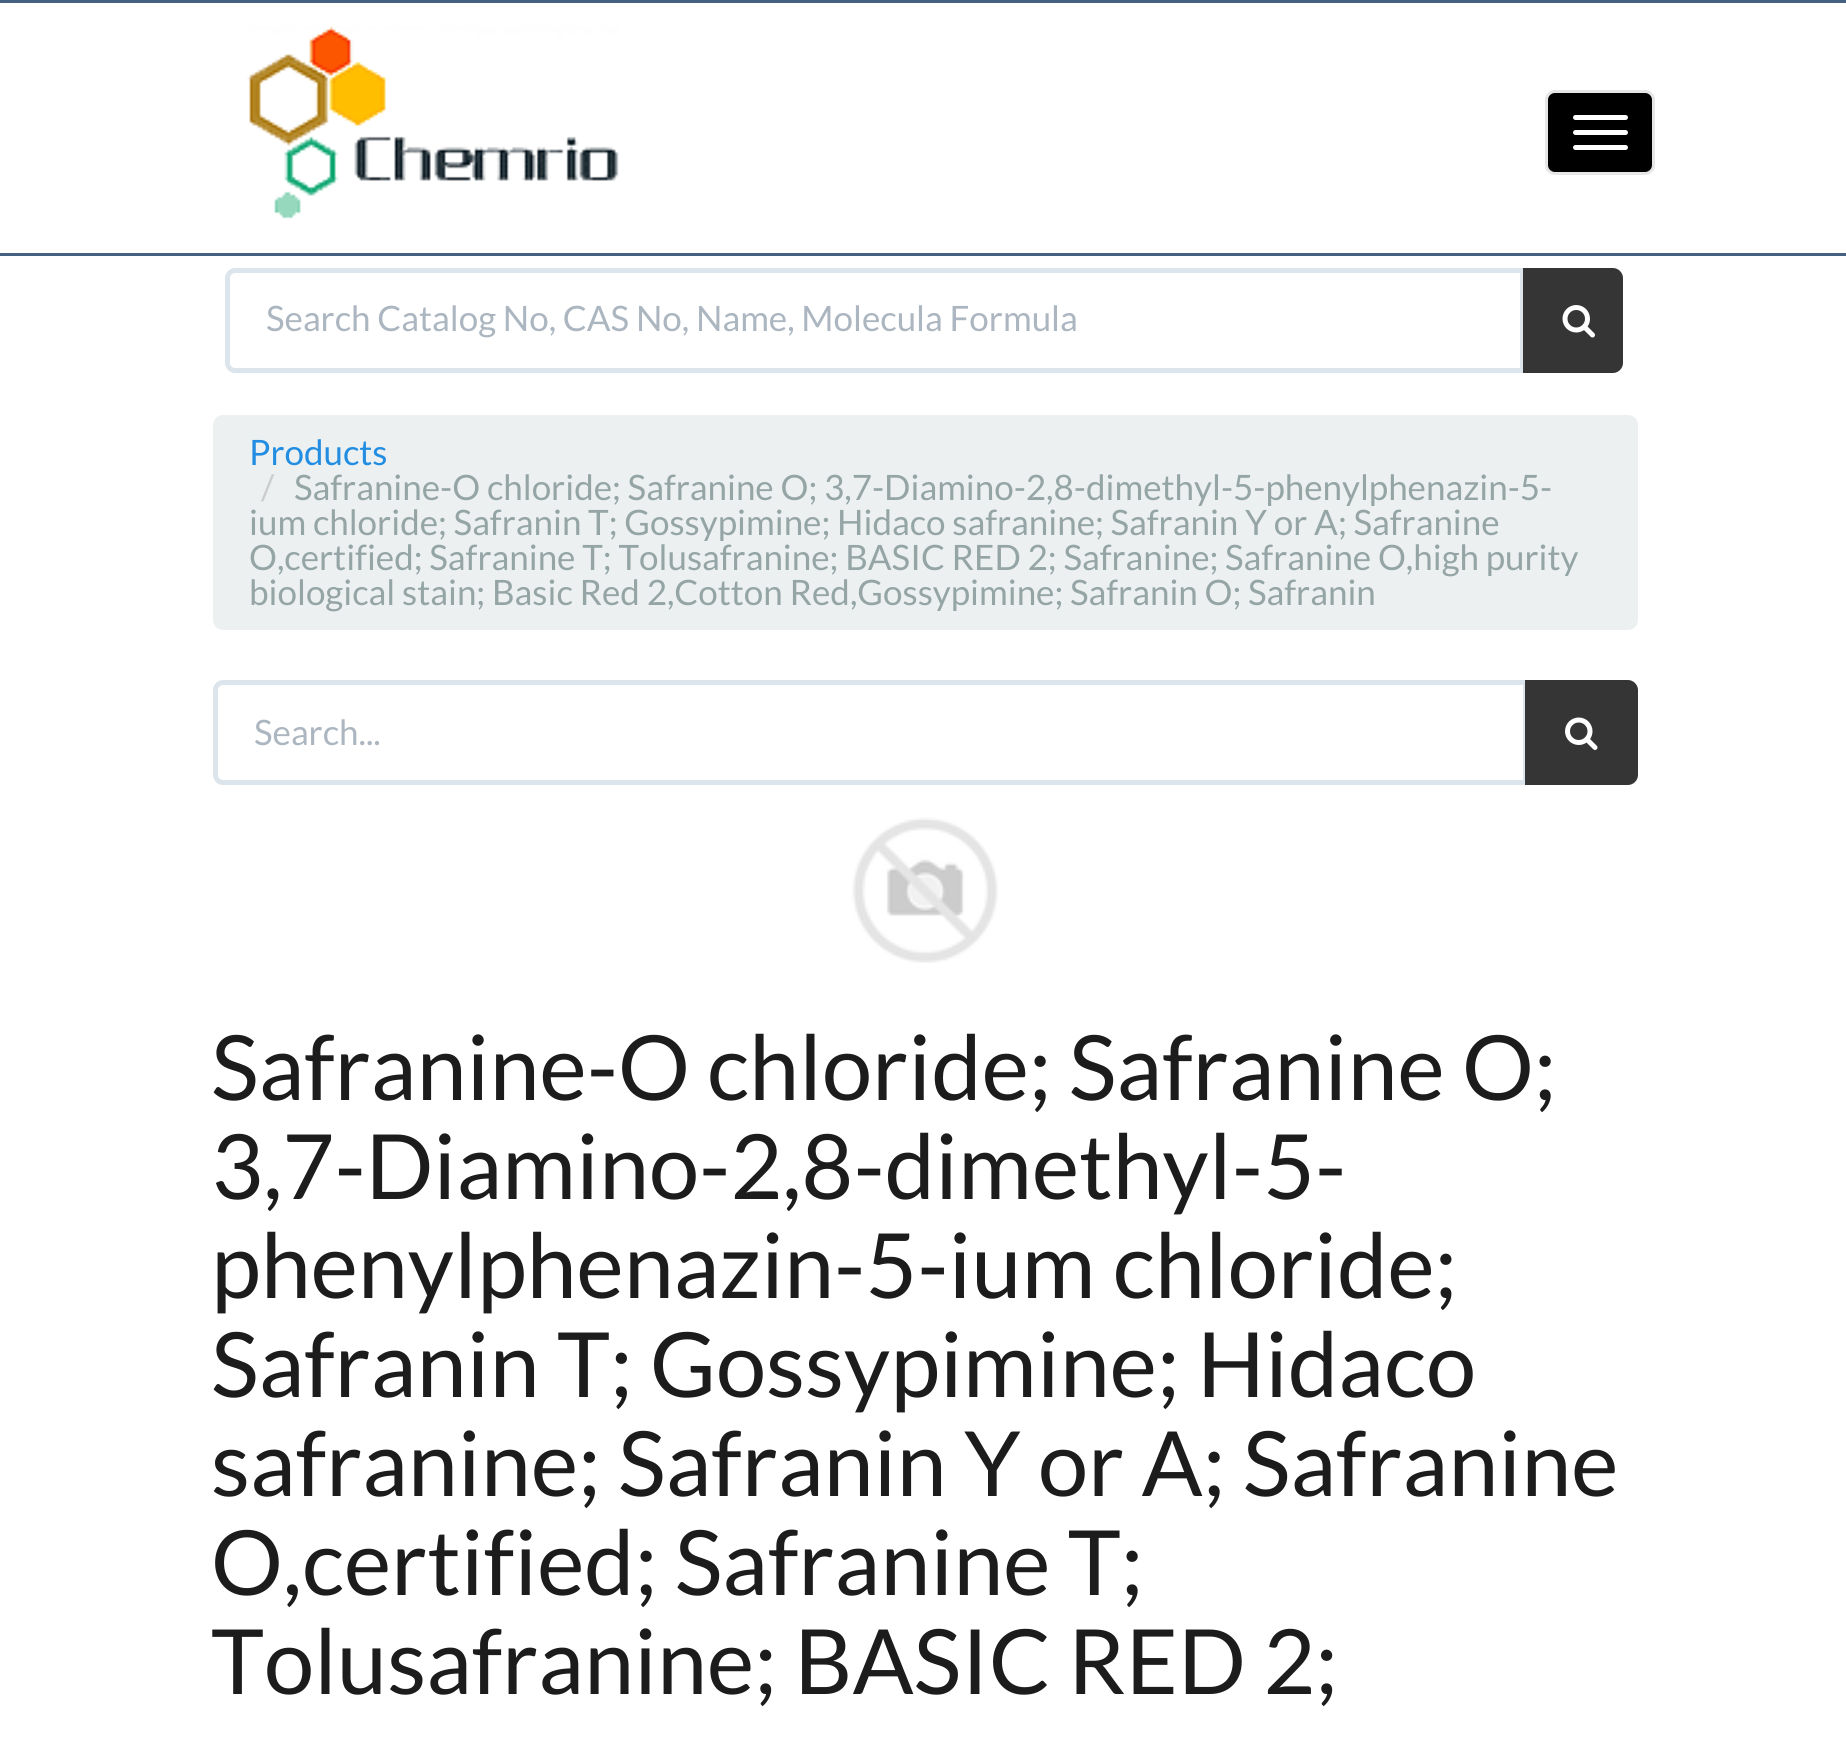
#include <cairo/cairo.h>
#include <math.h>
#include <stddef.h>


static void rounded_rect(cairo_t *cr, double x, double y, double w, double h, double r) {
  cairo_new_sub_path(cr);
  cairo_arc(cr, x + w - r, y + h - r, r, 0, M_PI / 2);
  cairo_arc(cr, x + r, y + h - r, r, M_PI / 2, M_PI);
  cairo_arc(cr, x + r, y + r, r, M_PI, 1.5 * M_PI);
  cairo_arc(cr, x + w - r, y + r, r, 1.5 * M_PI, 2 * M_PI);
  cairo_close_path(cr);
}

static void draw_image(cairo_t *cr, const char *path, double x, double y, double w, double h) {
  cairo_surface_t *image = cairo_image_surface_create_from_png(path);
  cairo_save(cr);
  cairo_set_source_surface(cr, image, x, y);
  cairo_rectangle(cr, x, y, w, h);
  cairo_fill(cr);
  cairo_restore(cr);
  cairo_surface_destroy(image);
}

static void draw(cairo_t *cr) {
  cairo_set_source_rgb(cr, 1, 1, 1);
  cairo_paint(cr);
  cairo_set_source_rgb(cr, 70 / 255.0, 96 / 255.0, 127 / 255.0);
  cairo_rectangle(cr, 0, 0, 1846, 3);
  cairo_fill(cr);
  draw_image(cr, "images/1.png", 247, 26, 372, 194);
  cairo_set_source_rgb(cr, 0, 0, 0);
  rounded_rect(cr, 1546.5, 91.5, 107, 82, 8.5);
  cairo_fill_preserve(cr);
  cairo_set_source_rgb(cr, 230 / 255.0, 230 / 255.0, 230 / 255.0);
  cairo_set_line_width(cr, 3);
  cairo_stroke(cr);
  cairo_set_source_rgb(cr, 1, 1, 1);
  rounded_rect(cr, 1573, 115, 55, 5, 2.5);
  cairo_fill(cr);
  rounded_rect(cr, 1573, 130, 55, 5, 2.5);
  cairo_fill(cr);
  rounded_rect(cr, 1573, 145, 55, 5, 2.5);
  cairo_fill(cr);
  cairo_set_source_rgb(cr, 70 / 255.0, 96 / 255.0, 127 / 255.0);
  cairo_rectangle(cr, 0, 253, 1846, 3);
  cairo_fill(cr);
  cairo_new_path(cr);
  cairo_move_to(cr, 235, 270.5);
  cairo_line_to(cr, 1522.5, 270.5);
  cairo_line_to(cr, 1522.5, 370.5);
  cairo_line_to(cr, 235, 370.5);
  cairo_curve_to(cr, 231, 370.5, 227.5, 367, 227.5, 363);
  cairo_line_to(cr, 227.5, 278);
  cairo_curve_to(cr, 227.5, 274, 231, 270.5, 235, 270.5);
  cairo_close_path(cr);
  cairo_set_source_rgb(cr, 220 / 255.0, 228 / 255.0, 236 / 255.0);
  cairo_set_line_width(cr, 5);
  cairo_stroke(cr);
  cairo_set_source_rgb(cr, 53 / 255.0, 53 / 255.0, 53 / 255.0);
  cairo_new_path(cr);
  cairo_move_to(cr, 1524.5, 269.5);
  cairo_line_to(cr, 1613, 269.5);
  cairo_curve_to(cr, 1617.5, 269.5, 1621.5, 273.5, 1621.5, 278);
  cairo_line_to(cr, 1621.5, 363);
  cairo_curve_to(cr, 1621.5, 367.5, 1617.5, 371.5, 1613, 371.5);
  cairo_line_to(cr, 1524.5, 371.5);
  cairo_close_path(cr);
  cairo_fill_preserve(cr);
  cairo_set_line_width(cr, 3);
  cairo_stroke(cr);
  draw_image(cr, "images/2.png", 1562, 305, 33, 33);
  cairo_set_source_rgb(cr, 236 / 255.0, 240 / 255.0, 241 / 255.0);
  rounded_rect(cr, 213, 415, 1425, 215, 10);
  cairo_fill(cr);
  cairo_new_path(cr);
  cairo_move_to(cr, 223, 682.5);
  cairo_line_to(cr, 1525.5, 682.5);
  cairo_line_to(cr, 1525.5, 782.5);
  cairo_line_to(cr, 223, 782.5);
  cairo_curve_to(cr, 219, 782.5, 215.5, 779, 215.5, 775);
  cairo_line_to(cr, 215.5, 690);
  cairo_curve_to(cr, 215.5, 686, 219, 682.5, 223, 682.5);
  cairo_close_path(cr);
  cairo_set_source_rgb(cr, 220 / 255.0, 228 / 255.0, 236 / 255.0);
  cairo_set_line_width(cr, 5);
  cairo_stroke(cr);
  cairo_set_source_rgb(cr, 53 / 255.0, 53 / 255.0, 53 / 255.0);
  cairo_new_path(cr);
  cairo_move_to(cr, 1526.5, 681.5);
  cairo_line_to(cr, 1628, 681.5);
  cairo_curve_to(cr, 1632.5, 681.5, 1636.5, 685.5, 1636.5, 690);
  cairo_line_to(cr, 1636.5, 775);
  cairo_curve_to(cr, 1636.5, 779.5, 1632.5, 783.5, 1628, 783.5);
  cairo_line_to(cr, 1526.5, 783.5);
  cairo_close_path(cr);
  cairo_fill_preserve(cr);
  cairo_set_line_width(cr, 3);
  cairo_stroke(cr);
  draw_image(cr, "images/3.png", 1565, 717, 33, 33);
  draw_image(cr, "images/4.png", 852, 817, 146, 146);
  cairo_select_font_face(cr, "Lato", CAIRO_FONT_SLANT_NORMAL, CAIRO_FONT_WEIGHT_NORMAL);
  cairo_set_font_size(cr, 35);
  cairo_set_source_rgb(cr, 172 / 255.0, 182 / 255.0, 192 / 255.0);
  cairo_move_to(cr, 266, 331);
  cairo_show_text(cr, "Search Catalog No, CAS No, Name, Molecula Formula");
  cairo_set_source_rgb(cr, 35 / 255.0, 142 / 255.0, 225 / 255.0);
  cairo_move_to(cr, 249, 465);
  cairo_show_text(cr, "Products");
  cairo_set_source_rgb(cr, 204 / 255.0, 204 / 255.0, 204 / 255.0);
  cairo_move_to(cr, 261, 500);
  cairo_show_text(cr, "/");
  cairo_set_source_rgb(cr, 149 / 255.0, 165 / 255.0, 166 / 255.0);
  cairo_move_to(cr, 294, 500);
  cairo_show_text(cr, "Safranine-O chloride; Safranine O; 3,7-Diamino-2,8-dimethyl-5-phenylphenazin-5-");
  cairo_move_to(cr, 249, 535);
  cairo_show_text(cr, "ium chloride; Safranin T; Gossypimine; Hidaco safranine; Safranin Y or A; Safranine");
  cairo_move_to(cr, 249, 570);
  cairo_show_text(cr, "O,certified; Safranine T; Tolusafranine; BASIC RED 2; Safranine; Safranine O,high purity");
  cairo_move_to(cr, 249, 605);
  cairo_show_text(cr, "biological stain; Basic Red 2,Cotton Red,Gossypimine; Safranin O; Safranin");
  cairo_set_source_rgb(cr, 172 / 255.0, 182 / 255.0, 192 / 255.0);
  cairo_move_to(cr, 254, 745);
  cairo_show_text(cr, "Search...");
  cairo_set_font_size(cr, 90);
  cairo_set_source_rgb(cr, 28 / 255.0, 28 / 255.0, 28 / 255.0);
  cairo_move_to(cr, 211, 1100);
  cairo_show_text(cr, "Safranine-O chloride; Safranine O;");
  cairo_move_to(cr, 211, 1199);
  cairo_show_text(cr, "3,7-Diamino-2,8-dimethyl-5-");
  cairo_move_to(cr, 211, 1298);
  cairo_show_text(cr, "phenylphenazin-5-ium chloride;");
  cairo_move_to(cr, 211, 1397);
  cairo_show_text(cr, "Safranin T; Gossypimine; Hidaco");
  cairo_move_to(cr, 211, 1496);
  cairo_show_text(cr, "safranine; Safranin Y or A; Safranine");
  cairo_move_to(cr, 211, 1595);
  cairo_show_text(cr, "O,certified; Safranine T;");
  cairo_move_to(cr, 211, 1694);
  cairo_show_text(cr, "Tolusafranine; BASIC RED 2;");
}

int main(void) {
  cairo_surface_t *surface = cairo_image_surface_create(CAIRO_FORMAT_RGB24, 1846, 1750);
  cairo_t *cr = cairo_create(surface);
  cairo_font_options_t *options = cairo_font_options_create();
  cairo_font_options_set_hint_metrics(options, CAIRO_HINT_METRICS_OFF);
  cairo_font_options_set_hint_style(options, CAIRO_HINT_STYLE_NONE);
  cairo_set_font_options(cr, options);
  cairo_set_miter_limit(cr, 4);
  draw(cr);
  cairo_surface_write_to_png(surface, "out.png");
  cairo_font_options_destroy(options);
  cairo_destroy(cr);
  cairo_surface_destroy(surface);
  return 0;
}
